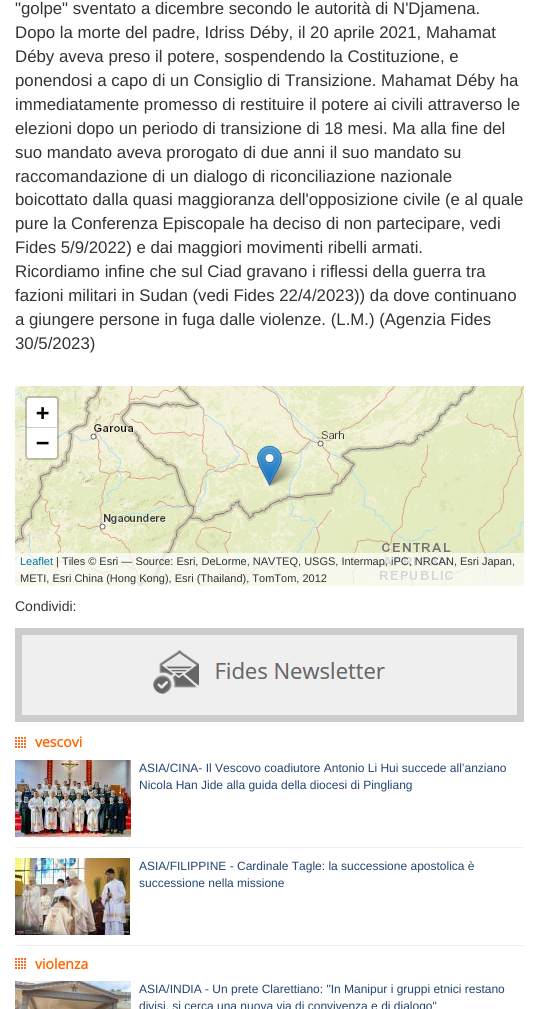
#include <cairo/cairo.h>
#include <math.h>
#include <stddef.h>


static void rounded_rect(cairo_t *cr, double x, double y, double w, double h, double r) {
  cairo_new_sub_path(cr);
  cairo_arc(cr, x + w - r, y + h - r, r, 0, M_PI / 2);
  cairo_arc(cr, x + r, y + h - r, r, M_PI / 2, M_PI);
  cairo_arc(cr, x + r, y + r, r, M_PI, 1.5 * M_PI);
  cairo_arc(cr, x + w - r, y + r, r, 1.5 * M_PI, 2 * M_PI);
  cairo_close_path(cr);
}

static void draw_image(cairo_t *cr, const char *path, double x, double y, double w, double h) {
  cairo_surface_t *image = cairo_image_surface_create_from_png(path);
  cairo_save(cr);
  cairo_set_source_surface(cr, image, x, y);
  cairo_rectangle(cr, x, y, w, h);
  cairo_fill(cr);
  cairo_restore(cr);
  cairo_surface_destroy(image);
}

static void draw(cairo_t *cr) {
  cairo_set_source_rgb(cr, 1, 1, 1);
  cairo_paint(cr);
  draw_image(cr, "images/1.png", 15, 386, 237, 200);
  draw_image(cr, "images/2.png", 252, 386, 256, 200);
  draw_image(cr, "images/3.png", 508, 386, 16, 200);
  draw_image(cr, "images/5.png", 267, 458, 29, 28);
  draw_image(cr, "images/4.png", 257, 445, 25, 41);
  rounded_rect(cr, 26, 397, 32, 62, 3);
  cairo_set_source_rgba(cr, 0, 0, 0, 0.2);
  cairo_stroke(cr);
  cairo_set_source_rgb(cr, 1, 1, 1);
  cairo_new_path(cr);
  cairo_move_to(cr, 29, 398);
  cairo_line_to(cr, 55, 398);
  cairo_curve_to(cr, 56, 398, 57, 399, 57, 400);
  cairo_line_to(cr, 57, 428);
  cairo_line_to(cr, 27, 428);
  cairo_line_to(cr, 27, 400);
  cairo_curve_to(cr, 27, 399, 28, 398, 29, 398);
  cairo_close_path(cr);
  cairo_fill(cr);
  cairo_set_source_rgb(cr, 204 / 255.0, 204 / 255.0, 204 / 255.0);
  cairo_rectangle(cr, 27, 427, 30, 1);
  cairo_fill(cr);
  cairo_set_source_rgb(cr, 1, 1, 1);
  cairo_new_path(cr);
  cairo_move_to(cr, 27, 428);
  cairo_line_to(cr, 57, 428);
  cairo_line_to(cr, 57, 456);
  cairo_curve_to(cr, 57, 457, 56, 458, 55, 458);
  cairo_line_to(cr, 29, 458);
  cairo_curve_to(cr, 28, 458, 27, 457, 27, 456);
  cairo_close_path(cr);
  cairo_fill(cr);
  cairo_set_source_rgba(cr, 1, 1, 1, 0.7);
  cairo_rectangle(cr, 15, 553, 509, 33);
  cairo_fill(cr);
  cairo_set_source_rgb(cr, 239 / 255.0, 239 / 255.0, 239 / 255.0);
  cairo_rectangle(cr, 18.5, 631.5, 502, 87);
  cairo_fill_preserve(cr);
  cairo_set_source_rgb(cr, 204 / 255.0, 204 / 255.0, 204 / 255.0);
  cairo_set_line_width(cr, 7);
  cairo_stroke(cr);
  draw_image(cr, "images/6.png", 153, 650, 232, 44);
  draw_image(cr, "images/7.png", 15, 737, 11, 11);
  draw_image(cr, "images/8.png", 15, 760, 116, 77);
  cairo_set_source_rgb(cr, 238 / 255.0, 238 / 255.0, 238 / 255.0);
  cairo_rectangle(cr, 15, 847, 509, 1);
  cairo_fill(cr);
  draw_image(cr, "images/9.png", 15, 858, 116, 77);
  cairo_rectangle(cr, 15, 945, 509, 1);
  cairo_fill(cr);
  draw_image(cr, "images/7.png", 15, 958, 11, 11);
  draw_image(cr, "images/10.png", 15, 981, 116, 28);
  cairo_select_font_face(cr, "Liberation Sans", CAIRO_FONT_SLANT_NORMAL, CAIRO_FONT_WEIGHT_NORMAL);
  cairo_set_font_size(cr, 16.8);
  cairo_set_source_rgb(cr, 51 / 255.0, 51 / 255.0, 51 / 255.0);
  cairo_move_to(cr, 15, 14);
  cairo_show_text(cr, "\"golpe\" sventato a dicembre secondo le autorità di N'Djamena.");
  cairo_move_to(cr, 15, 38);
  cairo_show_text(cr, "Dopo la morte del padre, Idriss Déby, il 20 aprile 2021, Mahamat");
  cairo_move_to(cr, 15, 62);
  cairo_show_text(cr, "Déby aveva preso il potere, sospendendo la Costituzione, e");
  cairo_move_to(cr, 15, 86);
  cairo_show_text(cr, "ponendosi a capo di un Consiglio di Transizione. Mahamat Déby ha");
  cairo_move_to(cr, 15, 110);
  cairo_show_text(cr, "immediatamente promesso di restituire il potere ai civili attraverso le");
  cairo_move_to(cr, 15, 134);
  cairo_show_text(cr, "elezioni dopo un periodo di transizione di 18 mesi. Ma alla fine del");
  cairo_move_to(cr, 15, 158);
  cairo_show_text(cr, "suo mandato aveva prorogato di due anni il suo mandato su");
  cairo_move_to(cr, 15, 182);
  cairo_show_text(cr, "raccomandazione di un dialogo di riconciliazione nazionale");
  cairo_move_to(cr, 15, 205);
  cairo_show_text(cr, "boicottato dalla quasi maggioranza dell'opposizione civile (e al quale");
  cairo_move_to(cr, 15, 229);
  cairo_show_text(cr, "pure la Conferenza Episcopale ha deciso di non partecipare, vedi");
  cairo_move_to(cr, 15, 253);
  cairo_show_text(cr, "Fides 5/9/2022) e dai maggiori movimenti ribelli armati.");
  cairo_move_to(cr, 15, 277);
  cairo_show_text(cr, "Ricordiamo infine che sul Ciad gravano i riflessi della guerra tra");
  cairo_move_to(cr, 15, 301);
  cairo_show_text(cr, "fazioni militari in Sudan (vedi Fides 22/4/2023)) da dove continuano");
  cairo_move_to(cr, 15, 325);
  cairo_show_text(cr, "a giungere persone in fuga dalle violenze. (L.M.) (Agenzia Fides");
  cairo_move_to(cr, 15, 349);
  cairo_show_text(cr, "30/5/2023)");
  cairo_select_font_face(cr, "DejaVu Sans Mono", CAIRO_FONT_SLANT_NORMAL, CAIRO_FONT_WEIGHT_BOLD);
  cairo_set_font_size(cr, 22);
  cairo_set_source_rgb(cr, 0, 0, 0);
  cairo_move_to(cr, 36, 420);
  cairo_show_text(cr, "+");
  cairo_move_to(cr, 36, 450);
  cairo_show_text(cr, "−");
  cairo_select_font_face(cr, "Liberation Sans", CAIRO_FONT_SLANT_NORMAL, CAIRO_FONT_WEIGHT_NORMAL);
  cairo_set_font_size(cr, 11);
  cairo_set_source_rgb(cr, 0, 120 / 255.0, 168 / 255.0);
  cairo_move_to(cr, 20, 565);
  cairo_show_text(cr, "Leaflet");
  cairo_set_source_rgb(cr, 51 / 255.0, 51 / 255.0, 51 / 255.0);
  cairo_move_to(cr, 56, 565);
  cairo_show_text(cr, "| Tiles © Esri — Source: Esri, DeLorme, NAVTEQ, USGS, Intermap, iPC, NRCAN, Esri Japan,");
  cairo_move_to(cr, 20, 582);
  cairo_show_text(cr, "METI, Esri China (Hong Kong), Esri (Thailand), TomTom, 2012");
  cairo_set_font_size(cr, 14);
  cairo_move_to(cr, 15, 611);
  cairo_show_text(cr, "Condividi:");
  cairo_select_font_face(cr, "Open Sans", CAIRO_FONT_SLANT_NORMAL, CAIRO_FONT_WEIGHT_BOLD);
  cairo_set_source_rgb(cr, 1, 102 / 255.0, 0);
  cairo_move_to(cr, 35, 747);
  cairo_show_text(cr, "vescovi");
  cairo_select_font_face(cr, "Liberation Sans", CAIRO_FONT_SLANT_NORMAL, CAIRO_FONT_WEIGHT_NORMAL);
  cairo_set_font_size(cr, 12);
  cairo_set_source_rgb(cr, 37 / 255.0, 68 / 255.0, 114 / 255.0);
  cairo_move_to(cr, 139, 772);
  cairo_show_text(cr, "ASIA/CINA- Il Vescovo coadiutore Antonio Li Hui succede all’anziano");
  cairo_move_to(cr, 139, 789);
  cairo_show_text(cr, "Nicola Han Jide alla guida della diocesi di Pingliang");
  cairo_move_to(cr, 139, 870);
  cairo_show_text(cr, "ASIA/FILIPPINE - Cardinale Tagle: la successione apostolica è");
  cairo_move_to(cr, 139, 887);
  cairo_show_text(cr, "successione nella missione");
  cairo_select_font_face(cr, "Open Sans", CAIRO_FONT_SLANT_NORMAL, CAIRO_FONT_WEIGHT_BOLD);
  cairo_set_font_size(cr, 14);
  cairo_set_source_rgb(cr, 1, 102 / 255.0, 0);
  cairo_move_to(cr, 35, 969);
  cairo_show_text(cr, "violenza");
  cairo_select_font_face(cr, "Liberation Sans", CAIRO_FONT_SLANT_NORMAL, CAIRO_FONT_WEIGHT_NORMAL);
  cairo_set_font_size(cr, 12);
  cairo_set_source_rgb(cr, 37 / 255.0, 68 / 255.0, 114 / 255.0);
  cairo_move_to(cr, 139, 993);
  cairo_show_text(cr, "ASIA/INDIA - Un prete Clarettiano: \"In Manipur i gruppi etnici restano");
  cairo_move_to(cr, 139, 1010);
  cairo_show_text(cr, "divisi, si cerca una nuova via di convivenza e di dialogo\"");
}

int main(void) {
  cairo_surface_t *surface = cairo_image_surface_create(CAIRO_FORMAT_RGB24, 539, 1009);
  cairo_t *cr = cairo_create(surface);
  cairo_font_options_t *options = cairo_font_options_create();
  cairo_font_options_set_hint_metrics(options, CAIRO_HINT_METRICS_OFF);
  cairo_font_options_set_hint_style(options, CAIRO_HINT_STYLE_NONE);
  cairo_set_font_options(cr, options);
  cairo_set_miter_limit(cr, 4);
  draw(cr);
  cairo_surface_write_to_png(surface, "out.png");
  cairo_font_options_destroy(options);
  cairo_destroy(cr);
  cairo_surface_destroy(surface);
  return 0;
}
